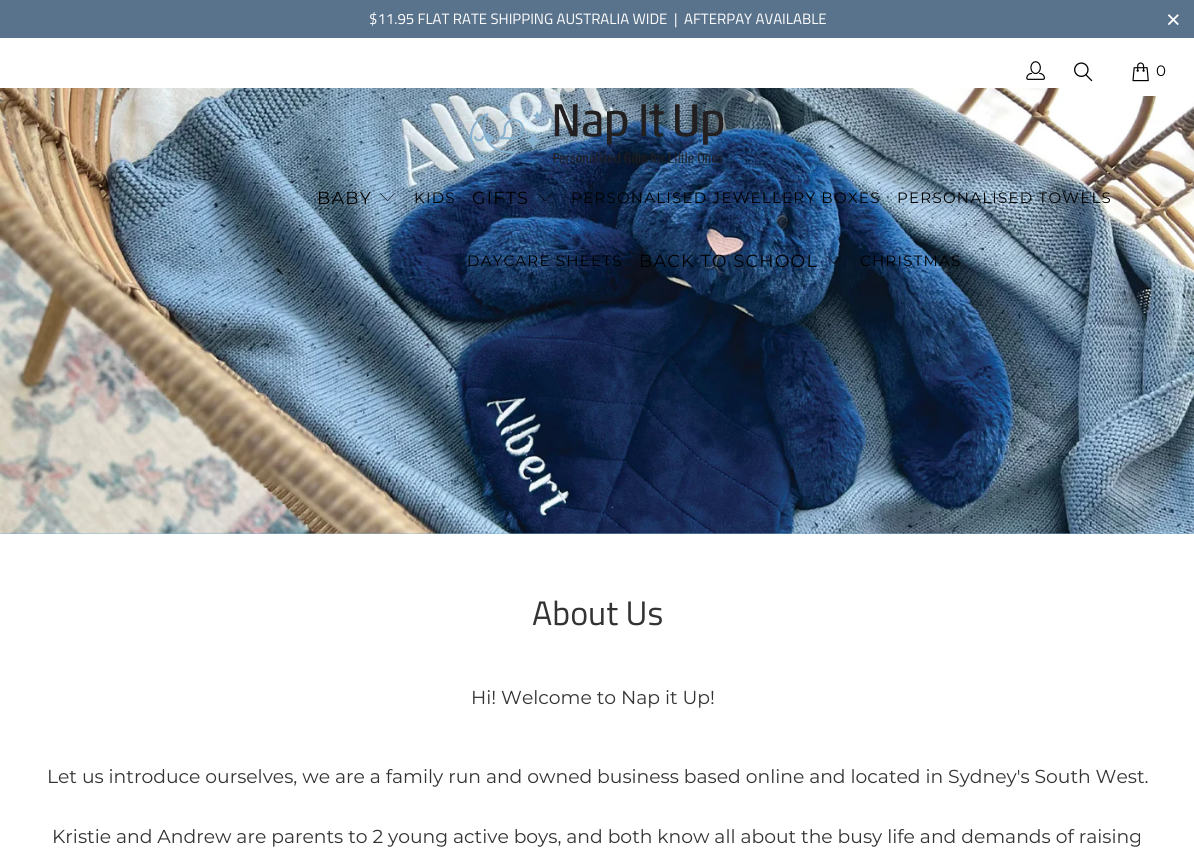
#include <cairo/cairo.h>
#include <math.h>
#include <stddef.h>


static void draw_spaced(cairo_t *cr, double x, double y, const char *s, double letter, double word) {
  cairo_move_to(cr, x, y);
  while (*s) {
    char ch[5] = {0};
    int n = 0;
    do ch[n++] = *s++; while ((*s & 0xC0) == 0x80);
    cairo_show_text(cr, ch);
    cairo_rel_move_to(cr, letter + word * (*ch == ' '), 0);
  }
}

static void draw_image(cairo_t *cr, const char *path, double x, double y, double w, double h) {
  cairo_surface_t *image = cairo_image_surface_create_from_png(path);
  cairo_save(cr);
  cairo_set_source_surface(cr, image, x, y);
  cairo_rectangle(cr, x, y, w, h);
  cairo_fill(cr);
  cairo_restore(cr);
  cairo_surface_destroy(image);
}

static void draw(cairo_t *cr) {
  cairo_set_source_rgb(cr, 1, 1, 1);
  cairo_paint(cr);
  cairo_set_source_rgb(cr, 90 / 255.0, 115 / 255.0, 141 / 255.0);
  cairo_rectangle(cr, 0, 0, 1194, 38);
  cairo_fill(cr);
  draw_image(cr, "images/1.png", 1026, 61, 19, 19);
  draw_image(cr, "images/2.png", 1074, 62, 19, 20);
  cairo_set_source_rgb(cr, 134 / 255.0, 177 / 255.0, 207 / 255.0);
  cairo_rectangle(cr, 0, 533, 1194, 1);
  cairo_fill(cr);
  draw_image(cr, "images/8.png", 0, 88, 1194, 446);
  cairo_set_source_rgb(cr, 1, 1, 1);
  cairo_rectangle(cr, 1142, 88, 19, 8);
  cairo_fill(cr);
  draw_image(cr, "images/3.png", 1132, 62, 17, 20);
  draw_image(cr, "images/4.png", 470, 104, 254, 59);
  draw_image(cr, "images/5.png", 380, 193, 15, 9);
  draw_image(cr, "images/6.png", 537, 193, 16, 8);
  draw_image(cr, "images/7.png", 826, 255, 15, 9);
  cairo_select_font_face(cr, "Titillium Web", CAIRO_FONT_SLANT_NORMAL, CAIRO_FONT_WEIGHT_NORMAL);
  cairo_set_font_size(cr, 15);
  cairo_move_to(cr, 369, 24);
  cairo_show_text(cr, "$11.95 FLAT RATE SHIPPING AUSTRALIA WIDE  |  AFTERPAY AVAILABLE");
  cairo_select_font_face(cr, "Liberation Sans", CAIRO_FONT_SLANT_NORMAL, CAIRO_FONT_WEIGHT_NORMAL);
  cairo_set_font_size(cr, 25);
  cairo_move_to(cr, 1166, 28);
  cairo_show_text(cr, "×");
  cairo_select_font_face(cr, "Montserrat", CAIRO_FONT_SLANT_NORMAL, CAIRO_FONT_WEIGHT_NORMAL);
  cairo_set_font_size(cr, 15);
  cairo_set_source_rgb(cr, 0, 0, 0);
  draw_spaced(cr, 1156, 76, "0", 1.25, 0);
  cairo_set_font_size(cr, 17.5);
  draw_spaced(cr, 317, 204, "BABY", 1.25, 0);
  cairo_set_font_size(cr, 15);
  draw_spaced(cr, 414, 203, "KIDS", 1.25, 0);
  cairo_set_font_size(cr, 17.5);
  draw_spaced(cr, 472, 204, "GIFTS", 1.25, 0);
  cairo_set_font_size(cr, 15);
  draw_spaced(cr, 571, 203, "PERSONALISED JEWELLERY BOXES", 1.25, 0);
  draw_spaced(cr, 897, 203, "PERSONALISED TOWELS", 1.25, 0);
  draw_spaced(cr, 467, 266, "DAYCARE SHEETS", 1.25, 0);
  cairo_set_font_size(cr, 17.5);
  draw_spaced(cr, 639, 267, "BACK TO SCHOOL", 1.25, 0);
  cairo_set_font_size(cr, 15);
  draw_spaced(cr, 860, 266, "CHRISTMAS", 1.25, 0);
  cairo_select_font_face(cr, "Titillium Web", CAIRO_FONT_SLANT_NORMAL, CAIRO_FONT_WEIGHT_NORMAL);
  cairo_set_font_size(cr, 34);
  cairo_set_source_rgb(cr, 51 / 255.0, 51 / 255.0, 51 / 255.0);
  cairo_move_to(cr, 532, 625);
  cairo_show_text(cr, "About Us");
  cairo_select_font_face(cr, "Montserrat", CAIRO_FONT_SLANT_NORMAL, CAIRO_FONT_WEIGHT_NORMAL);
  cairo_set_font_size(cr, 18.75);
  cairo_move_to(cr, 471, 704);
  cairo_show_text(cr, "Hi! Welcome to Nap it Up!");
  cairo_move_to(cr, 47, 783);
  cairo_show_text(cr, "Let us introduce ourselves, we are a family run and owned business based online and located in Sydney's South West.");
  cairo_move_to(cr, 52, 843);
  cairo_show_text(cr, "Kristie and Andrew are parents to 2 young active boys, and both know all about the busy life and demands of raising");
}

int main(void) {
  cairo_surface_t *surface = cairo_image_surface_create(CAIRO_FORMAT_RGB24, 1194, 863);
  cairo_t *cr = cairo_create(surface);
  cairo_font_options_t *options = cairo_font_options_create();
  cairo_font_options_set_hint_metrics(options, CAIRO_HINT_METRICS_OFF);
  cairo_font_options_set_hint_style(options, CAIRO_HINT_STYLE_NONE);
  cairo_set_font_options(cr, options);
  cairo_set_miter_limit(cr, 4);
  draw(cr);
  cairo_surface_write_to_png(surface, "out.png");
  cairo_font_options_destroy(options);
  cairo_destroy(cr);
  cairo_surface_destroy(surface);
  return 0;
}
